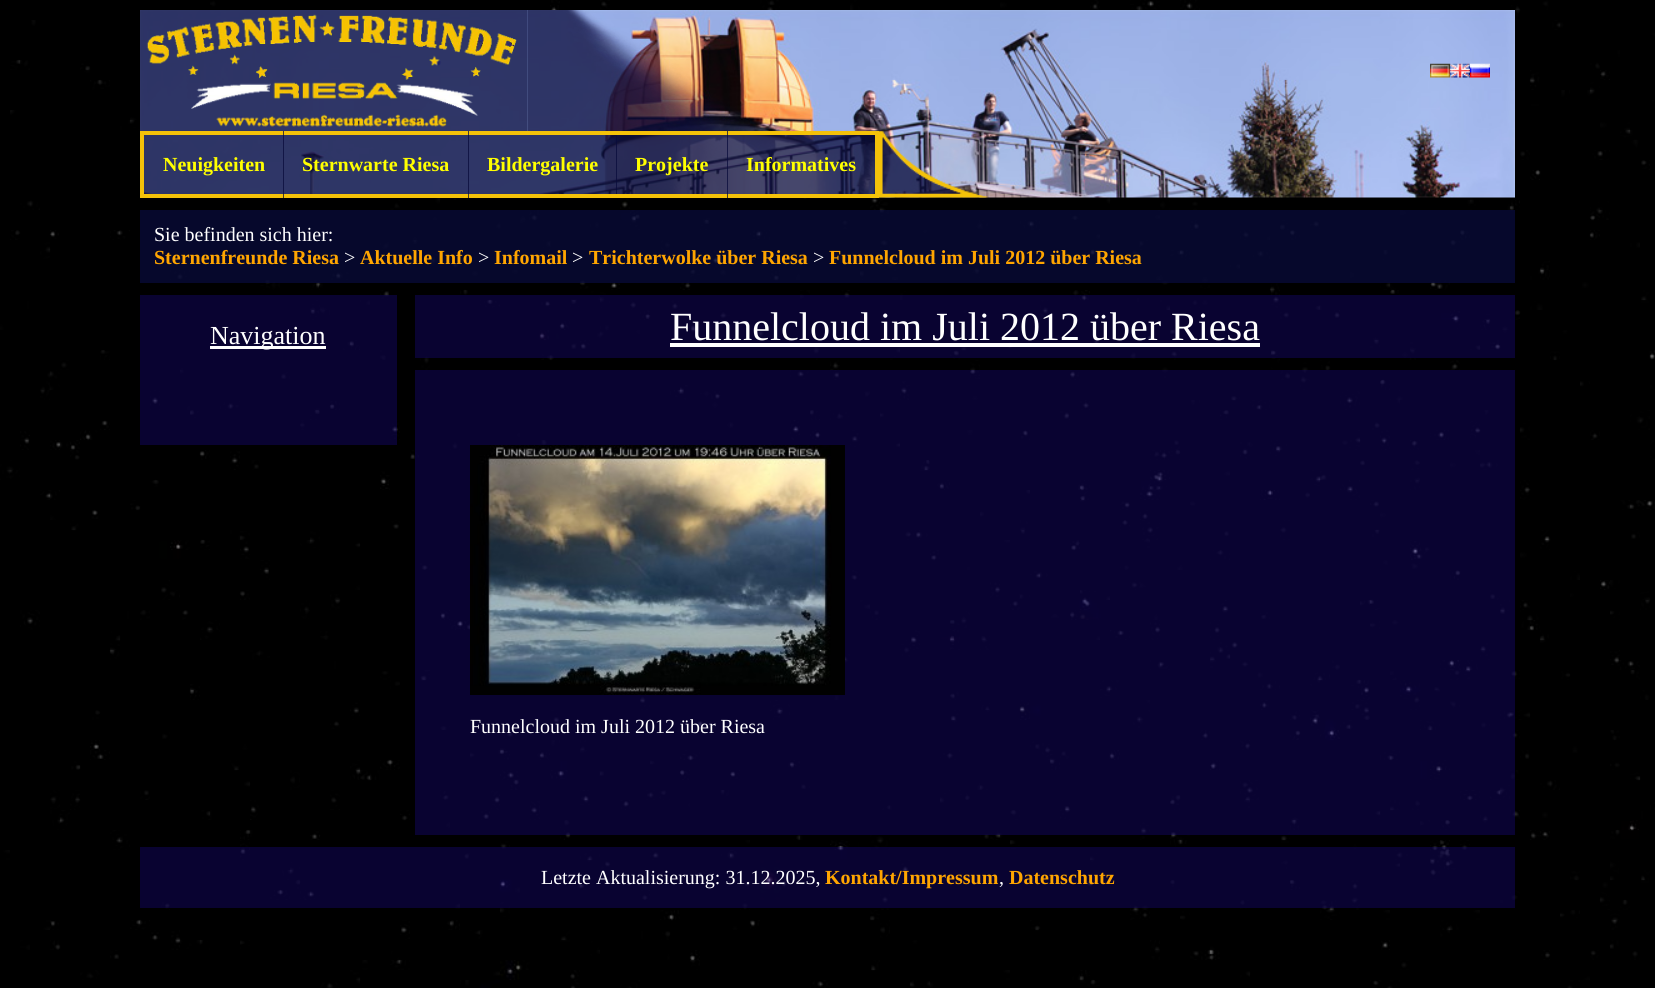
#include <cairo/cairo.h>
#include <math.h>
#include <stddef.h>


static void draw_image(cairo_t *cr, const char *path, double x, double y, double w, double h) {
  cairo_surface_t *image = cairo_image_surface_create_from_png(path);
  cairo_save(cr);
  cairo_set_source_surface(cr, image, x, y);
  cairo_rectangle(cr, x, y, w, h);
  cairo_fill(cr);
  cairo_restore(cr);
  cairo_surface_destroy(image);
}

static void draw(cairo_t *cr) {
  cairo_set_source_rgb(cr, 1, 1, 1);
  cairo_paint(cr);
  draw_image(cr, "images/1.png", 0, 0, 1655, 988);
  draw_image(cr, "images/2.png", 140, 10, 1375, 188);
  draw_image(cr, "images/3.png", 140, 10, 388, 121);
  draw_image(cr, "images/4.png", 527, 10, 229, 121);
  draw_image(cr, "images/5.png", 1430, 63, 20, 15);
  draw_image(cr, "images/6.png", 1450, 63, 20, 15);
  draw_image(cr, "images/7.png", 1470, 63, 20, 15);
  cairo_set_source_rgba(cr, 9 / 255.0, 11 / 255.0, 59 / 255.0, 0.75);
  cairo_rectangle(cr, 144, 135, 140, 59);
  cairo_fill(cr);
  cairo_set_source_rgb(cr, 244 / 255.0, 194 / 255.0, 9 / 255.0);
  cairo_rectangle(cr, 140, 131, 144, 4);
  cairo_fill(cr);
  cairo_rectangle(cr, 140, 194, 144, 4);
  cairo_fill(cr);
  cairo_rectangle(cr, 140, 131, 4, 67);
  cairo_fill(cr);
  cairo_set_source_rgba(cr, 9 / 255.0, 11 / 255.0, 59 / 255.0, 0.75);
  cairo_rectangle(cr, 283, 131, 186, 67);
  cairo_fill(cr);
  cairo_set_source_rgb(cr, 244 / 255.0, 194 / 255.0, 9 / 255.0);
  cairo_rectangle(cr, 284, 131, 185, 4);
  cairo_fill(cr);
  cairo_rectangle(cr, 284, 194, 185, 4);
  cairo_fill(cr);
  cairo_set_source_rgba(cr, 9 / 255.0, 11 / 255.0, 59 / 255.0, 0.75);
  cairo_rectangle(cr, 468, 131, 149, 67);
  cairo_fill(cr);
  cairo_set_source_rgb(cr, 244 / 255.0, 194 / 255.0, 9 / 255.0);
  cairo_rectangle(cr, 469, 131, 259, 4);
  cairo_fill(cr);
  cairo_rectangle(cr, 469, 194, 259, 4);
  cairo_fill(cr);
  cairo_set_source_rgba(cr, 9 / 255.0, 11 / 255.0, 59 / 255.0, 0.75);
  cairo_rectangle(cr, 616, 135, 112, 59);
  cairo_fill(cr);
  cairo_rectangle(cr, 727, 131, 148, 67);
  cairo_fill(cr);
  cairo_set_source_rgb(cr, 244 / 255.0, 194 / 255.0, 9 / 255.0);
  cairo_rectangle(cr, 728, 131, 151, 4);
  cairo_fill(cr);
  cairo_rectangle(cr, 875, 131, 4, 67);
  cairo_fill(cr);
  cairo_rectangle(cr, 728, 194, 151, 4);
  cairo_fill(cr);
  draw_image(cr, "images/8.png", 879, 131, 109, 67);
  cairo_set_source_rgba(cr, 9 / 255.0, 11 / 255.0, 59 / 255.0, 0.75);
  cairo_rectangle(cr, 140, 210, 1375, 73);
  cairo_fill(cr);
  cairo_set_source_rgba(cr, 18 / 255.0, 6 / 255.0, 96 / 255.0, 0.51);
  cairo_rectangle(cr, 140, 295, 257, 150);
  cairo_fill(cr);
  cairo_set_source_rgb(cr, 1, 1, 1);
  cairo_rectangle(cr, 210, 346, 116, 3);
  cairo_fill(cr);
  cairo_set_source_rgba(cr, 18 / 255.0, 6 / 255.0, 96 / 255.0, 0.51);
  cairo_rectangle(cr, 415, 295, 1100, 63);
  cairo_fill(cr);
  cairo_set_source_rgb(cr, 1, 1, 1);
  cairo_rectangle(cr, 670, 343, 590, 4);
  cairo_fill(cr);
  cairo_set_source_rgba(cr, 18 / 255.0, 6 / 255.0, 96 / 255.0, 0.51);
  cairo_rectangle(cr, 415, 370, 1100, 465);
  cairo_fill(cr);
  draw_image(cr, "images/9.png", 470, 445, 375, 250);
  cairo_rectangle(cr, 140, 847, 1375, 61);
  cairo_fill(cr);
  cairo_select_font_face(cr, "Liberation Serif", CAIRO_FONT_SLANT_NORMAL, CAIRO_FONT_WEIGHT_BOLD);
  cairo_set_font_size(cr, 20);
  cairo_set_source_rgb(cr, 1, 1, 0);
  cairo_move_to(cr, 163, 171);
  cairo_show_text(cr, "Neuigkeiten");
  cairo_move_to(cr, 302, 171);
  cairo_show_text(cr, "Sternwarte Riesa");
  cairo_move_to(cr, 487, 171);
  cairo_show_text(cr, "Bildergalerie");
  cairo_move_to(cr, 635, 171);
  cairo_show_text(cr, "Projekte");
  cairo_move_to(cr, 746, 171);
  cairo_show_text(cr, "Informatives");
  cairo_select_font_face(cr, "Liberation Serif", CAIRO_FONT_SLANT_NORMAL, CAIRO_FONT_WEIGHT_NORMAL);
  cairo_set_source_rgb(cr, 1, 1, 1);
  cairo_move_to(cr, 154, 241);
  cairo_show_text(cr, "Sie befinden sich hier:");
  cairo_select_font_face(cr, "Liberation Serif", CAIRO_FONT_SLANT_NORMAL, CAIRO_FONT_WEIGHT_BOLD);
  cairo_set_source_rgb(cr, 1, 165 / 255.0, 0);
  cairo_move_to(cr, 154, 264);
  cairo_show_text(cr, "Sternenfreunde Riesa");
  cairo_select_font_face(cr, "Liberation Serif", CAIRO_FONT_SLANT_NORMAL, CAIRO_FONT_WEIGHT_NORMAL);
  cairo_set_source_rgb(cr, 1, 1, 1);
  cairo_move_to(cr, 344, 264);
  cairo_show_text(cr, ">");
  cairo_select_font_face(cr, "Liberation Serif", CAIRO_FONT_SLANT_NORMAL, CAIRO_FONT_WEIGHT_BOLD);
  cairo_set_source_rgb(cr, 1, 165 / 255.0, 0);
  cairo_move_to(cr, 360, 264);
  cairo_show_text(cr, "Aktuelle Info");
  cairo_select_font_face(cr, "Liberation Serif", CAIRO_FONT_SLANT_NORMAL, CAIRO_FONT_WEIGHT_NORMAL);
  cairo_set_source_rgb(cr, 1, 1, 1);
  cairo_move_to(cr, 478, 264);
  cairo_show_text(cr, ">");
  cairo_select_font_face(cr, "Liberation Serif", CAIRO_FONT_SLANT_NORMAL, CAIRO_FONT_WEIGHT_BOLD);
  cairo_set_source_rgb(cr, 1, 165 / 255.0, 0);
  cairo_move_to(cr, 494, 264);
  cairo_show_text(cr, "Infomail");
  cairo_select_font_face(cr, "Liberation Serif", CAIRO_FONT_SLANT_NORMAL, CAIRO_FONT_WEIGHT_NORMAL);
  cairo_set_source_rgb(cr, 1, 1, 1);
  cairo_move_to(cr, 572, 264);
  cairo_show_text(cr, ">");
  cairo_select_font_face(cr, "Liberation Serif", CAIRO_FONT_SLANT_NORMAL, CAIRO_FONT_WEIGHT_BOLD);
  cairo_set_source_rgb(cr, 1, 165 / 255.0, 0);
  cairo_move_to(cr, 589, 264);
  cairo_show_text(cr, "Trichterwolke über Riesa");
  cairo_select_font_face(cr, "Liberation Serif", CAIRO_FONT_SLANT_NORMAL, CAIRO_FONT_WEIGHT_NORMAL);
  cairo_set_source_rgb(cr, 1, 1, 1);
  cairo_move_to(cr, 813, 264);
  cairo_show_text(cr, ">");
  cairo_select_font_face(cr, "Liberation Serif", CAIRO_FONT_SLANT_NORMAL, CAIRO_FONT_WEIGHT_BOLD);
  cairo_set_source_rgb(cr, 1, 165 / 255.0, 0);
  cairo_move_to(cr, 829, 264);
  cairo_show_text(cr, "Funnelcloud im Juli 2012 über Riesa");
  cairo_select_font_face(cr, "Liberation Serif", CAIRO_FONT_SLANT_NORMAL, CAIRO_FONT_WEIGHT_NORMAL);
  cairo_set_font_size(cr, 26);
  cairo_set_source_rgb(cr, 1, 1, 1);
  cairo_move_to(cr, 210, 344);
  cairo_show_text(cr, "Navigation");
  cairo_set_font_size(cr, 40);
  cairo_move_to(cr, 670, 340);
  cairo_show_text(cr, "Funnelcloud im Juli 2012 über Riesa");
  cairo_set_font_size(cr, 20);
  cairo_move_to(cr, 470, 733);
  cairo_show_text(cr, "Funnelcloud im Juli 2012 über Riesa");
  cairo_move_to(cr, 541, 884);
  cairo_show_text(cr, "Letzte Aktualisierung: 31.12.2025,");
  cairo_select_font_face(cr, "Liberation Serif", CAIRO_FONT_SLANT_NORMAL, CAIRO_FONT_WEIGHT_BOLD);
  cairo_set_source_rgb(cr, 1, 165 / 255.0, 0);
  cairo_move_to(cr, 825, 884);
  cairo_show_text(cr, "Kontakt/Impressum");
  cairo_select_font_face(cr, "Liberation Serif", CAIRO_FONT_SLANT_NORMAL, CAIRO_FONT_WEIGHT_NORMAL);
  cairo_set_source_rgb(cr, 1, 1, 1);
  cairo_move_to(cr, 999, 884);
  cairo_show_text(cr, ",");
  cairo_select_font_face(cr, "Liberation Serif", CAIRO_FONT_SLANT_NORMAL, CAIRO_FONT_WEIGHT_BOLD);
  cairo_set_source_rgb(cr, 1, 165 / 255.0, 0);
  cairo_move_to(cr, 1009, 884);
  cairo_show_text(cr, "Datenschutz");
}

int main(void) {
  cairo_surface_t *surface = cairo_image_surface_create(CAIRO_FORMAT_RGB24, 1655, 988);
  cairo_t *cr = cairo_create(surface);
  cairo_font_options_t *options = cairo_font_options_create();
  cairo_font_options_set_hint_metrics(options, CAIRO_HINT_METRICS_OFF);
  cairo_font_options_set_hint_style(options, CAIRO_HINT_STYLE_NONE);
  cairo_set_font_options(cr, options);
  cairo_set_miter_limit(cr, 4);
  draw(cr);
  cairo_surface_write_to_png(surface, "out.png");
  cairo_font_options_destroy(options);
  cairo_destroy(cr);
  cairo_surface_destroy(surface);
  return 0;
}
